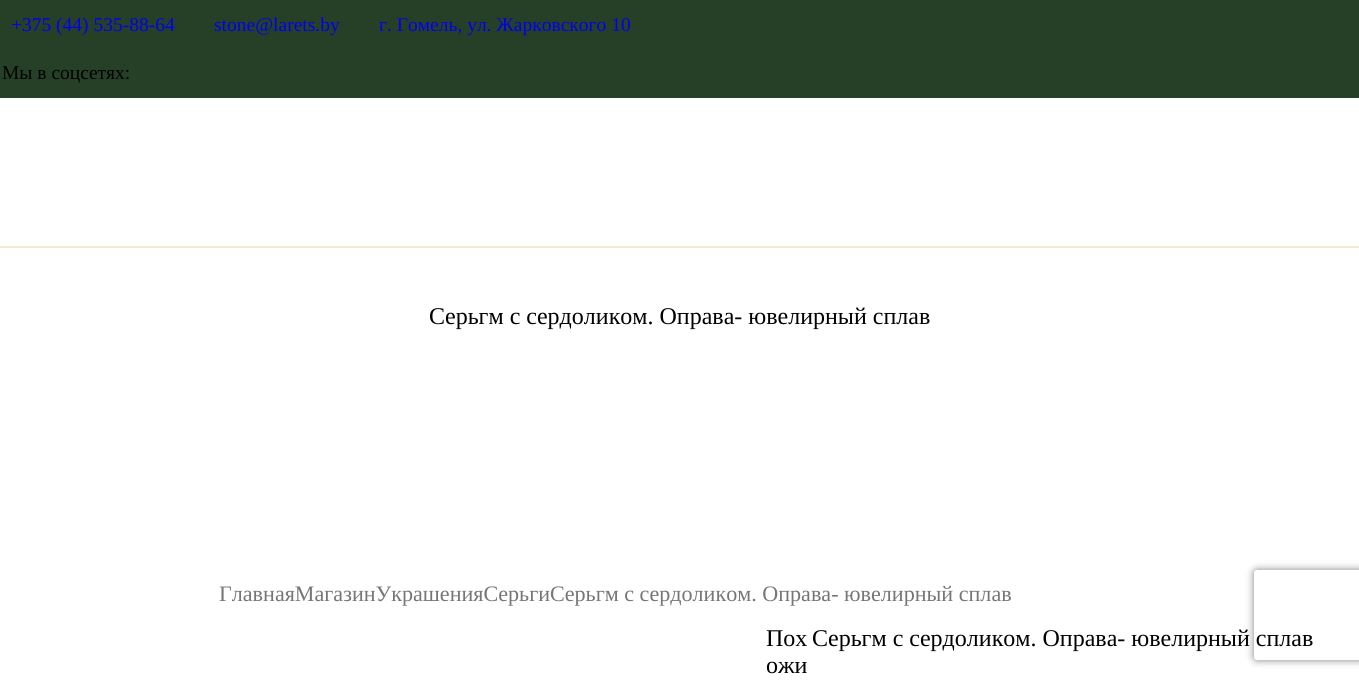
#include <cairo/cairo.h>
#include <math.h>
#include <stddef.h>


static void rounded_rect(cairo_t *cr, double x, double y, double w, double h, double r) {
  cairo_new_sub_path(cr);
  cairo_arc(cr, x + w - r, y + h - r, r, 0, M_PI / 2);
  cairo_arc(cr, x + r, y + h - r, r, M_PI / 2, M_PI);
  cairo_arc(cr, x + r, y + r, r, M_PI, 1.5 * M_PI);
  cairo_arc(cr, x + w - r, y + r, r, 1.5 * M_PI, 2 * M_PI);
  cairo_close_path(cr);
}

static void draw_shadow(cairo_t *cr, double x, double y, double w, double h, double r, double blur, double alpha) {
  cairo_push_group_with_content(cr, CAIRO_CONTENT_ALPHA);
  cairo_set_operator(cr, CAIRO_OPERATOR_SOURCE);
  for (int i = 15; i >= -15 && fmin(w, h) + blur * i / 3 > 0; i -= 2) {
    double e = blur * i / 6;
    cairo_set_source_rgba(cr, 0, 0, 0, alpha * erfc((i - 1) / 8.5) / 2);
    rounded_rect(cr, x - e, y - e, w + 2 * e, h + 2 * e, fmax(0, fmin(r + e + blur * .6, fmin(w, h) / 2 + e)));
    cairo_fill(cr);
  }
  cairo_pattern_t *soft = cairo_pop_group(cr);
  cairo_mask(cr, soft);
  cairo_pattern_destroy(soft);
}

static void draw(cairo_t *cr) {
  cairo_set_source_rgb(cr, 1, 1, 1);
  cairo_paint(cr);
  cairo_set_source_rgb(cr, 38 / 255.0, 64 / 255.0, 39 / 255.0);
  cairo_rectangle(cr, 0, 0, 1359, 98);
  cairo_fill(cr);
  cairo_set_source_rgb(cr, 242 / 255.0, 235 / 255.0, 212 / 255.0);
  cairo_rectangle(cr, 0, 246, 1359, 2);
  cairo_fill(cr);
  cairo_save(cr);
  cairo_set_fill_rule(cr, CAIRO_FILL_RULE_EVEN_ODD);
  cairo_new_path(cr);
  cairo_move_to(cr, 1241, 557);
  cairo_line_to(cr, 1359, 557);
  cairo_line_to(cr, 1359, 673);
  cairo_line_to(cr, 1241, 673);
  cairo_close_path(cr);
  cairo_move_to(cr, 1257, 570);
  cairo_line_to(cr, 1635, 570);
  cairo_curve_to(cr, 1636.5, 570, 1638, 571.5, 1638, 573);
  cairo_line_to(cr, 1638, 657);
  cairo_curve_to(cr, 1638, 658.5, 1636.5, 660, 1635, 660);
  cairo_line_to(cr, 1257, 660);
  cairo_curve_to(cr, 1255.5, 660, 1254, 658.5, 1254, 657);
  cairo_line_to(cr, 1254, 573);
  cairo_curve_to(cr, 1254, 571.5, 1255.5, 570, 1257, 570);
  cairo_close_path(cr);
  cairo_clip(cr);
  cairo_set_source_rgb(cr, 128 / 255.0, 128 / 255.0, 128 / 255.0);
  draw_shadow(cr, 1254, 570, 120, 90, 3, 4, 1);
  cairo_restore(cr);
  cairo_select_font_face(cr, "Liberation Serif", CAIRO_FONT_SLANT_NORMAL, CAIRO_FONT_WEIGHT_NORMAL);
  cairo_set_font_size(cr, 19.5);
  cairo_set_source_rgb(cr, 0, 0, 238 / 255.0);
  cairo_move_to(cr, 11, 31);
  cairo_show_text(cr, "+375 (44) 535-88-64");
  cairo_move_to(cr, 214, 31);
  cairo_show_text(cr, "stone@larets.by");
  cairo_move_to(cr, 379, 31);
  cairo_show_text(cr, "г. Гомель, ул. Жарковского 10");
  cairo_set_source_rgb(cr, 0, 0, 0);
  cairo_move_to(cr, 2, 79);
  cairo_show_text(cr, "Мы в соцсетях:");
  cairo_set_font_size(cr, 24);
  cairo_move_to(cr, 429, 324);
  cairo_show_text(cr, "Серьгм с сердоликом. Оправа- ювелирный сплав");
  cairo_set_font_size(cr, 22.1);
  cairo_set_source_rgb(cr, 118 / 255.0, 118 / 255.0, 118 / 255.0);
  cairo_move_to(cr, 219, 601);
  cairo_show_text(cr, "ГлавнаяМагазинУкрашенияСерьгиСерьгм с сердоликом. Оправа- ювелирный сплав");
  cairo_set_font_size(cr, 24);
  cairo_set_source_rgb(cr, 0, 0, 0);
  cairo_move_to(cr, 766, 646);
  cairo_show_text(cr, "Пох");
  cairo_move_to(cr, 766, 673);
  cairo_show_text(cr, "ожи");
  cairo_move_to(cr, 812, 646);
  cairo_show_text(cr, "Серьгм с сердоликом. Оправа- ювелирный сплав");
}

int main(void) {
  cairo_surface_t *surface = cairo_image_surface_create(CAIRO_FORMAT_RGB24, 1359, 680);
  cairo_t *cr = cairo_create(surface);
  cairo_font_options_t *options = cairo_font_options_create();
  cairo_font_options_set_hint_metrics(options, CAIRO_HINT_METRICS_OFF);
  cairo_font_options_set_hint_style(options, CAIRO_HINT_STYLE_NONE);
  cairo_set_font_options(cr, options);
  cairo_set_miter_limit(cr, 4);
  draw(cr);
  cairo_surface_write_to_png(surface, "out.png");
  cairo_font_options_destroy(options);
  cairo_destroy(cr);
  cairo_surface_destroy(surface);
  return 0;
}
